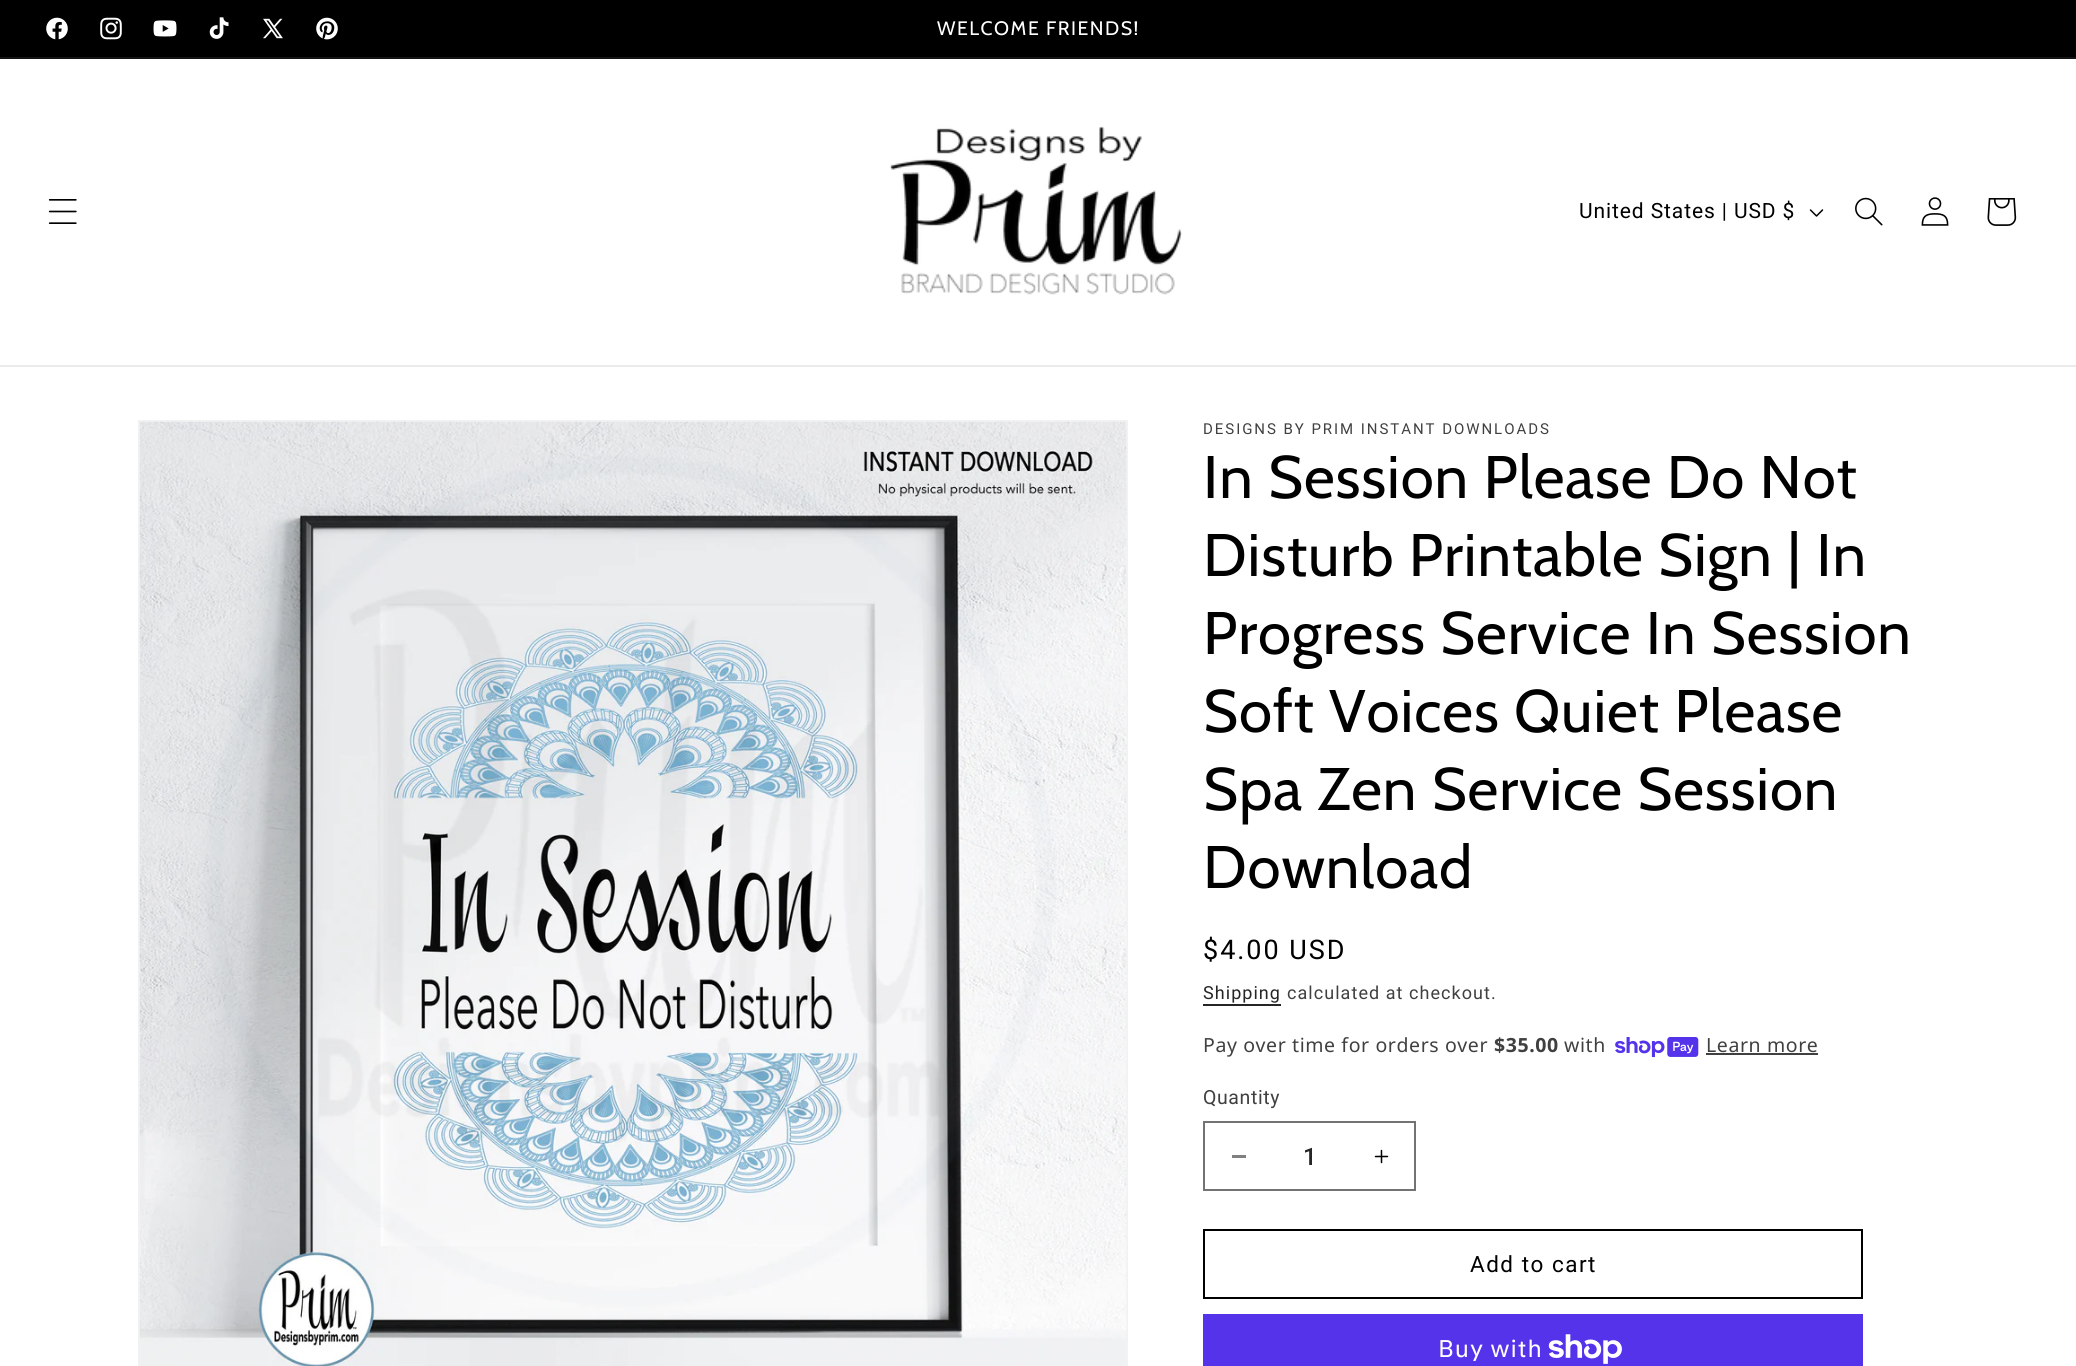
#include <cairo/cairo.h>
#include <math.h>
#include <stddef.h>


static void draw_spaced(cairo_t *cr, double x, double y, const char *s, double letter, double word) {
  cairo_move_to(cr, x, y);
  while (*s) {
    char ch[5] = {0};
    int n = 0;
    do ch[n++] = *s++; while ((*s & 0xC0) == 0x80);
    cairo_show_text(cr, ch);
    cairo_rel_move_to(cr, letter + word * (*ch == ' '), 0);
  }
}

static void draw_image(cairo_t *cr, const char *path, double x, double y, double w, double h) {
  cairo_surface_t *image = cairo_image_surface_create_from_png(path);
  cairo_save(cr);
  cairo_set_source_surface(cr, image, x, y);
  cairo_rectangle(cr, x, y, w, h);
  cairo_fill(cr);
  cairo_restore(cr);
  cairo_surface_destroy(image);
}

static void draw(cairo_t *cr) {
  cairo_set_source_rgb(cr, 1, 1, 1);
  cairo_paint(cr);
  cairo_set_source_rgb(cr, 0, 0, 0);
  cairo_rectangle(cr, 0, 0, 2076, 57);
  cairo_fill(cr);
  cairo_set_source_rgb(cr, 20 / 255.0, 20 / 255.0, 20 / 255.0);
  cairo_rectangle(cr, 0, 57, 2076, 2);
  cairo_fill(cr);
  draw_image(cr, "images/1.png", 46, 17, 22, 23);
  draw_image(cr, "images/2.png", 100, 17, 22, 23);
  draw_image(cr, "images/3.png", 153, 20, 24, 17);
  draw_image(cr, "images/4.png", 209, 17, 20, 22);
  draw_image(cr, "images/5.png", 263, 18, 20, 21);
  draw_image(cr, "images/6.png", 316, 17, 22, 23);
  cairo_set_source_rgb(cr, 235 / 255.0, 235 / 255.0, 235 / 255.0);
  cairo_rectangle(cr, 0, 365, 2076, 2);
  cairo_fill(cr);
  draw_image(cr, "images/7.png", 48, 199, 29, 25);
  draw_image(cr, "images/8.png", 890, 126, 292, 169);
  draw_image(cr, "images/9.png", 1809, 209, 15, 8);
  draw_image(cr, "images/10.png", 1855, 197, 28, 29);
  draw_image(cr, "images/11.png", 1921, 197, 28, 29);
  draw_image(cr, "images/12.png", 1987, 198, 30, 28);
  cairo_rectangle(cr, 139, 421, 988, 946);
  cairo_set_source_rgb(cr, 242 / 255.0, 242 / 255.0, 242 / 255.0);
  cairo_stroke(cr);
  draw_image(cr, "images/13.png", 139, 421, 988, 945);
  cairo_set_source_rgb(cr, 38 / 255.0, 38 / 255.0, 38 / 255.0);
  cairo_rectangle(cr, 1203, 1004, 78, 2);
  cairo_fill(cr);
  draw_image(cr, "images/14.png", 1615, 1037, 84, 21);
  cairo_set_source_rgb(cr, 64 / 255.0, 64 / 255.0, 64 / 255.0);
  cairo_rectangle(cr, 1706, 1053, 112, 2);
  cairo_fill(cr);
  cairo_set_source_rgb(cr, 128 / 255.0, 128 / 255.0, 128 / 255.0);
  cairo_rectangle(cr, 1232, 1155, 14, 3);
  cairo_fill(cr);
  draw_image(cr, "images/15.png", 1374, 1149, 15, 15);
  cairo_rectangle(cr, 1204, 1122, 211, 68);
  cairo_set_source_rgb(cr, 115 / 255.0, 115 / 255.0, 115 / 255.0);
  cairo_stroke(cr);
  cairo_rectangle(cr, 1204, 1230, 658, 68);
  cairo_set_source_rgb(cr, 0, 0, 0);
  cairo_stroke(cr);
  cairo_set_source_rgb(cr, 84 / 255.0, 51 / 255.0, 235 / 255.0);
  cairo_rectangle(cr, 1203, 1314, 660, 52);
  cairo_fill(cr);
  draw_image(cr, "images/16.png", 1548, 1334, 74, 30);
  cairo_select_font_face(cr, "Cabin", CAIRO_FONT_SLANT_NORMAL, CAIRO_FONT_WEIGHT_NORMAL);
  cairo_set_font_size(cr, 19.5);
  cairo_set_source_rgb(cr, 1, 1, 1);
  draw_spaced(cr, 937, 35, "WELCOME FRIENDS!", 1.5, 0);
  cairo_select_font_face(cr, "Roboto", CAIRO_FONT_SLANT_NORMAL, CAIRO_FONT_WEIGHT_NORMAL);
  cairo_set_font_size(cr, 21);
  cairo_set_source_rgb(cr, 0, 0, 0);
  draw_spaced(cr, 1579, 218, "United States | USD $", 0.9, 0);
  cairo_set_font_size(cr, 15);
  cairo_set_source_rgb(cr, 64 / 255.0, 64 / 255.0, 64 / 255.0);
  draw_spaced(cr, 1203, 434, "DESIGNS BY PRIM INSTANT DOWNLOADS", 1.95, 0);
  cairo_select_font_face(cr, "Cabin", CAIRO_FONT_SLANT_NORMAL, CAIRO_FONT_WEIGHT_NORMAL);
  cairo_set_font_size(cr, 60);
  cairo_set_source_rgb(cr, 0, 0, 0);
  draw_spaced(cr, 1203, 498, "In Session Please Do Not", 0.9, 0);
  draw_spaced(cr, 1203, 576, "Disturb Printable Sign | In", 0.9, 0);
  draw_spaced(cr, 1203, 654, "Progress Service In Session", 0.9, 0);
  draw_spaced(cr, 1203, 732, "Soft Voices Quiet Please", 0.9, 0);
  draw_spaced(cr, 1203, 810, "Spa Zen Service Session", 0.9, 0);
  draw_spaced(cr, 1203, 888, "Download", 0.9, 0);
  cairo_select_font_face(cr, "Roboto", CAIRO_FONT_SLANT_NORMAL, CAIRO_FONT_WEIGHT_NORMAL);
  cairo_set_font_size(cr, 27);
  draw_spaced(cr, 1203, 959, "$4.00 USD", 1.95, 0);
  cairo_set_font_size(cr, 18);
  cairo_set_source_rgb(cr, 38 / 255.0, 38 / 255.0, 38 / 255.0);
  draw_spaced(cr, 1203, 999, "Shipping", 1.05, 0);
  cairo_set_source_rgb(cr, 64 / 255.0, 64 / 255.0, 64 / 255.0);
  draw_spaced(cr, 1287, 999, "calculated at checkout.", 1.05, 0);
  cairo_select_font_face(cr, "Noto Sans", CAIRO_FONT_SLANT_NORMAL, CAIRO_FONT_WEIGHT_NORMAL);
  cairo_set_font_size(cr, 19.5);
  draw_spaced(cr, 1203, 1052, "Pay over time for orders over", 0.6, 0);
  cairo_select_font_face(cr, "Noto Sans", CAIRO_FONT_SLANT_NORMAL, CAIRO_FONT_WEIGHT_BOLD);
  draw_spaced(cr, 1494, 1052, "$35.00", 0.6, 0);
  cairo_select_font_face(cr, "Noto Sans", CAIRO_FONT_SLANT_NORMAL, CAIRO_FONT_WEIGHT_NORMAL);
  draw_spaced(cr, 1564, 1052, "with", 0.6, 0);
  draw_spaced(cr, 1706, 1052, "Learn more", 0.6, 0);
  cairo_select_font_face(cr, "Roboto", CAIRO_FONT_SLANT_NORMAL, CAIRO_FONT_WEIGHT_NORMAL);
  draw_spaced(cr, 1203, 1104, "Quantity", 0.6, 0);
  cairo_select_font_face(cr, "Roboto Medium", CAIRO_FONT_SLANT_NORMAL, CAIRO_FONT_WEIGHT_NORMAL);
  cairo_set_font_size(cr, 24);
  cairo_set_source_rgb(cr, 38 / 255.0, 38 / 255.0, 38 / 255.0);
  cairo_move_to(cr, 1303, 1165);
  cairo_show_text(cr, "1");
  cairo_select_font_face(cr, "Roboto", CAIRO_FONT_SLANT_NORMAL, CAIRO_FONT_WEIGHT_NORMAL);
  cairo_set_font_size(cr, 22.5);
  cairo_set_source_rgb(cr, 0, 0, 0);
  draw_spaced(cr, 1470, 1272, "Add to cart", 1.5, 0);
  cairo_select_font_face(cr, "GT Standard", CAIRO_FONT_SLANT_NORMAL, CAIRO_FONT_WEIGHT_NORMAL);
  cairo_set_font_size(cr, 24);
  cairo_set_source_rgb(cr, 1, 1, 1);
  draw_spaced(cr, 1438, 1357, "Buy with", 0.9, 0);
}

int main(void) {
  cairo_surface_t *surface = cairo_image_surface_create(CAIRO_FORMAT_RGB24, 2076, 1366);
  cairo_t *cr = cairo_create(surface);
  cairo_font_options_t *options = cairo_font_options_create();
  cairo_font_options_set_hint_metrics(options, CAIRO_HINT_METRICS_OFF);
  cairo_font_options_set_hint_style(options, CAIRO_HINT_STYLE_NONE);
  cairo_set_font_options(cr, options);
  cairo_set_miter_limit(cr, 4);
  draw(cr);
  cairo_surface_write_to_png(surface, "out.png");
  cairo_font_options_destroy(options);
  cairo_destroy(cr);
  cairo_surface_destroy(surface);
  return 0;
}
